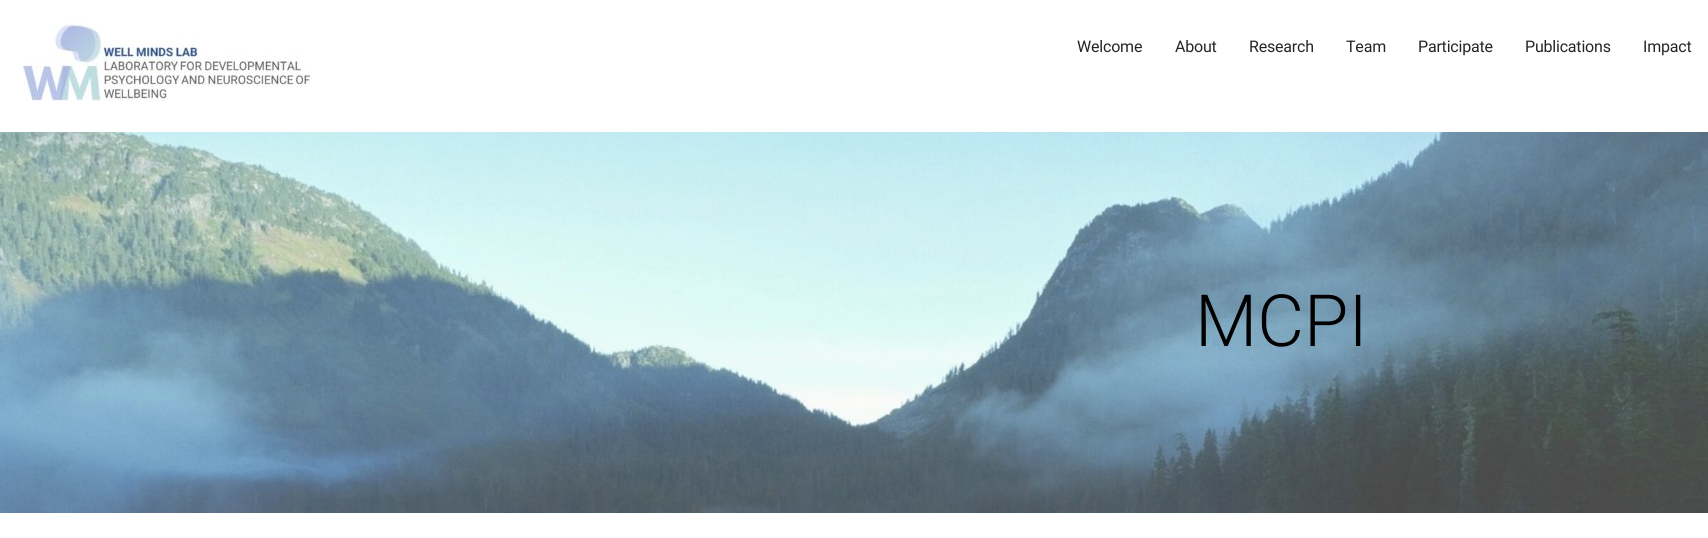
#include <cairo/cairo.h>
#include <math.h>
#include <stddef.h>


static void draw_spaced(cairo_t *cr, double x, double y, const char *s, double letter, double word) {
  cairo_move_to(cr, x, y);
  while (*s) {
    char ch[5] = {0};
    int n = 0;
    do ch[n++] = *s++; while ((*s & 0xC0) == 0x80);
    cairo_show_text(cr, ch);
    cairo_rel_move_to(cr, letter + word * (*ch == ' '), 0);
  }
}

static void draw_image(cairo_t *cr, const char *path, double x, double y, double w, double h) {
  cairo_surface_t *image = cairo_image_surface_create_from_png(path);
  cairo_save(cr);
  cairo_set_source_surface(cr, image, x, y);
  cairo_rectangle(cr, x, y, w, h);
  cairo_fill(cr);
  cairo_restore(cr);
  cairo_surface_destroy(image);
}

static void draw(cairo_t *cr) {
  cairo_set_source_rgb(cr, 1, 1, 1);
  cairo_paint(cr);
  draw_image(cr, "images/1.png", 23, 23, 288, 79);
  draw_image(cr, "images/2.png", 0, 132, 1708, 381);
  cairo_select_font_face(cr, "Roboto", CAIRO_FONT_SLANT_NORMAL, CAIRO_FONT_WEIGHT_NORMAL);
  cairo_set_font_size(cr, 16);
  cairo_set_source_rgb(cr, 37 / 255.0, 37 / 255.0, 37 / 255.0);
  draw_spaced(cr, 1077, 52, "Welcome", -0.2, 0);
  draw_spaced(cr, 1175, 52, "About", -0.2, 0);
  draw_spaced(cr, 1249, 52, "Research", -0.2, 0);
  draw_spaced(cr, 1346, 52, "Team", -0.2, 0);
  draw_spaced(cr, 1418, 52, "Participate", -0.2, 0);
  draw_spaced(cr, 1525, 52, "Publications", -0.2, 0);
  draw_spaced(cr, 1643, 52, "Impact", -0.2, 0);
  cairo_select_font_face(cr, "Roboto Light", CAIRO_FONT_SLANT_NORMAL, CAIRO_FONT_WEIGHT_NORMAL);
  cairo_set_font_size(cr, 72);
  cairo_set_source_rgb(cr, 0, 0, 0);
  cairo_move_to(cr, 1195, 346);
  cairo_show_text(cr, "MCPI");
}

int main(void) {
  cairo_surface_t *surface = cairo_image_surface_create(CAIRO_FORMAT_RGB24, 1708, 538);
  cairo_t *cr = cairo_create(surface);
  cairo_font_options_t *options = cairo_font_options_create();
  cairo_font_options_set_hint_metrics(options, CAIRO_HINT_METRICS_OFF);
  cairo_font_options_set_hint_style(options, CAIRO_HINT_STYLE_NONE);
  cairo_set_font_options(cr, options);
  cairo_set_miter_limit(cr, 4);
  draw(cr);
  cairo_surface_write_to_png(surface, "out.png");
  cairo_font_options_destroy(options);
  cairo_destroy(cr);
  cairo_surface_destroy(surface);
  return 0;
}
